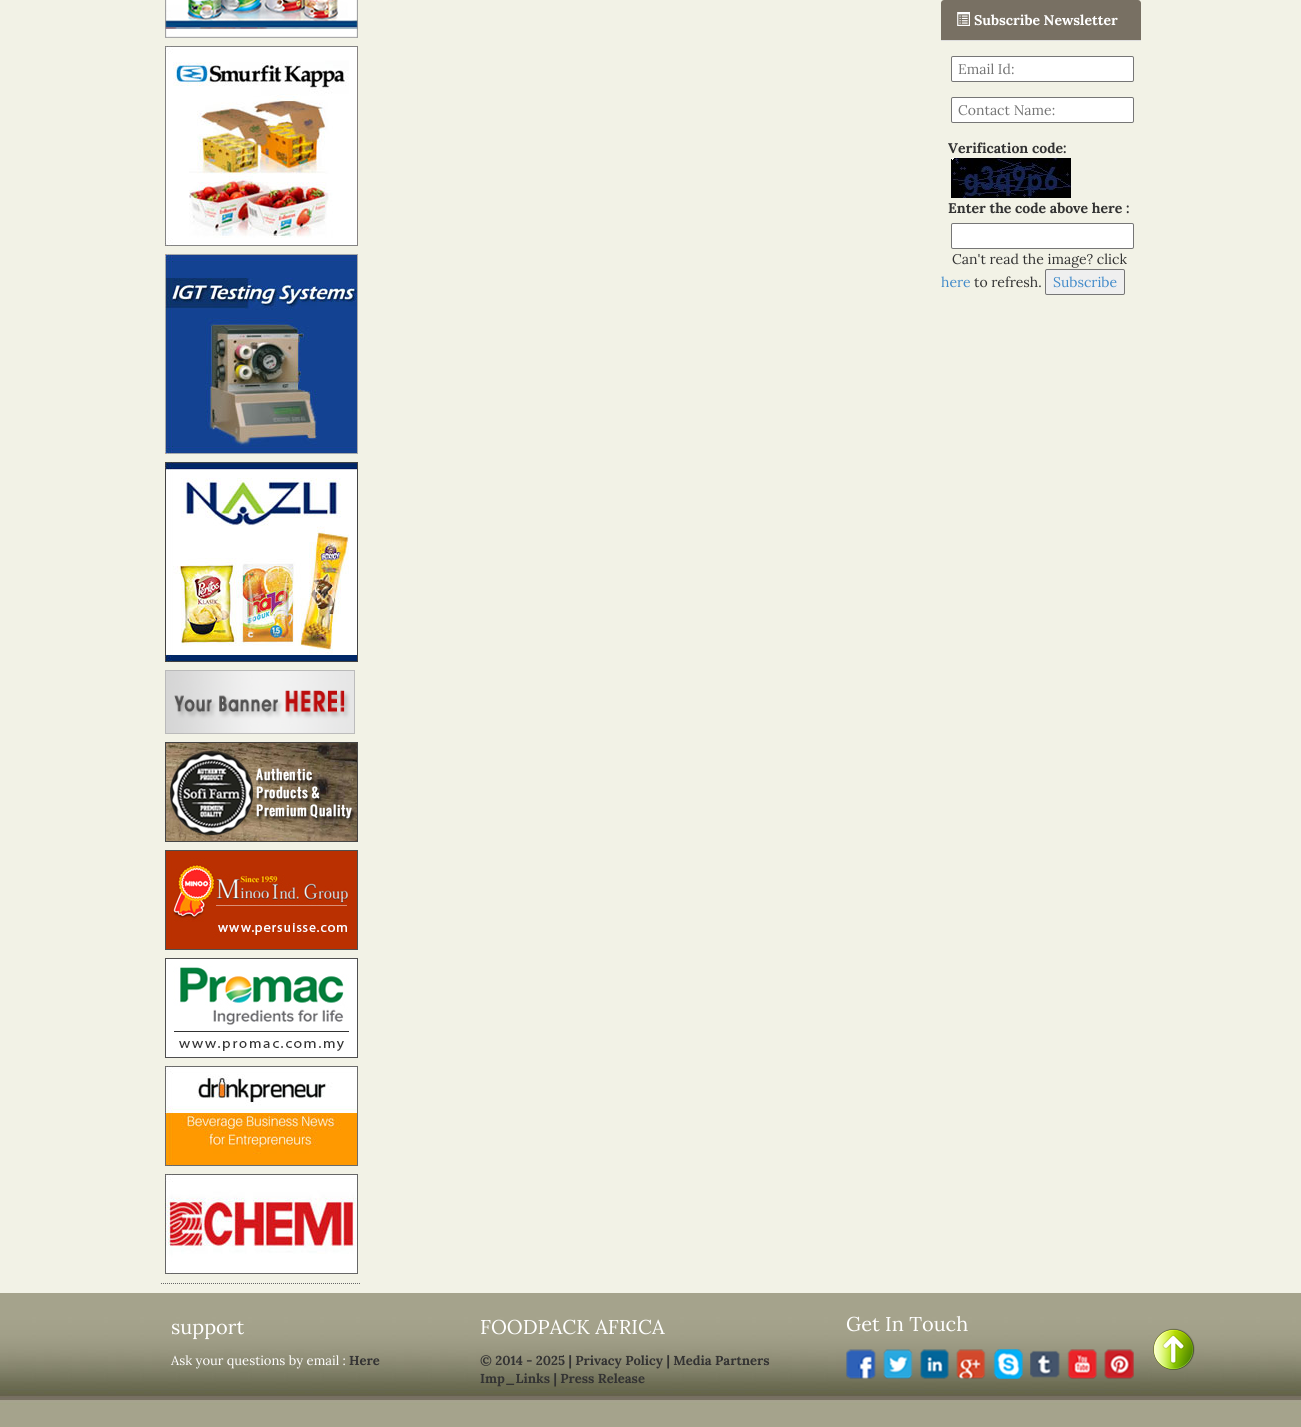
#include <cairo/cairo.h>
#include <math.h>
#include <stddef.h>


static void rounded_rect(cairo_t *cr, double x, double y, double w, double h, double r) {
  cairo_new_sub_path(cr);
  cairo_arc(cr, x + w - r, y + h - r, r, 0, M_PI / 2);
  cairo_arc(cr, x + r, y + h - r, r, M_PI / 2, M_PI);
  cairo_arc(cr, x + r, y + r, r, M_PI, 1.5 * M_PI);
  cairo_arc(cr, x + w - r, y + r, r, 1.5 * M_PI, 2 * M_PI);
  cairo_close_path(cr);
}

static void draw_image(cairo_t *cr, const char *path, double x, double y, double w, double h) {
  cairo_surface_t *image = cairo_image_surface_create_from_png(path);
  cairo_save(cr);
  cairo_set_source_surface(cr, image, x, y);
  cairo_rectangle(cr, x, y, w, h);
  cairo_fill(cr);
  cairo_restore(cr);
  cairo_surface_destroy(image);
}

static void draw(cairo_t *cr) {
  cairo_set_source_rgb(cr, 242 / 255.0, 242 / 255.0, 230 / 255.0);
  cairo_paint(cr);
  draw_image(cr, "images/1.png", 165, 0, 193, 38);
  draw_image(cr, "images/2.png", 165, 46, 193, 200);
  draw_image(cr, "images/3.png", 165, 254, 193, 200);
  draw_image(cr, "images/4.png", 165, 462, 193, 200);
  draw_image(cr, "images/5.png", 165, 670, 190, 64);
  draw_image(cr, "images/6.png", 165, 742, 193, 100);
  draw_image(cr, "images/7.png", 165, 850, 193, 100);
  draw_image(cr, "images/8.png", 165, 958, 193, 100);
  draw_image(cr, "images/9.png", 165, 1066, 193, 100);
  draw_image(cr, "images/10.png", 165, 1174, 193, 100);
  cairo_new_path(cr);
  cairo_move_to(cr, 161, 1283.5);
  cairo_line_to(cr, 361, 1283.5);
  cairo_set_source_rgb(cr, 102 / 255.0, 102 / 255.0, 102 / 255.0);
  cairo_set_line_width(cr, 1);
  cairo_set_dash(cr, (double[]){1, 1}, 2, 0);
  cairo_stroke(cr);
  cairo_set_source_rgb(cr, 120 / 255.0, 112 / 255.0, 99 / 255.0);
  cairo_new_path(cr);
  cairo_move_to(cr, 944, 0);
  cairo_line_to(cr, 1138, 0);
  cairo_curve_to(cr, 1139.5, 0, 1141, 1.5, 1141, 3);
  cairo_line_to(cr, 1141, 41);
  cairo_line_to(cr, 941, 41);
  cairo_line_to(cr, 941, 3);
  cairo_curve_to(cr, 941, 1.5, 942.5, 0, 944, 0);
  cairo_close_path(cr);
  cairo_fill(cr);
  cairo_set_source_rgb(cr, 221 / 255.0, 221 / 255.0, 221 / 255.0);
  cairo_rectangle(cr, 941, 40, 200, 1);
  cairo_fill(cr);
  draw_image(cr, "images/11.png", 957, 12, 13, 14);
  cairo_set_source_rgb(cr, 1, 1, 1);
  rounded_rect(cr, 951.5, 56.5, 182, 25, 1.5);
  cairo_fill_preserve(cr);
  cairo_set_source_rgb(cr, 118 / 255.0, 118 / 255.0, 118 / 255.0);
  cairo_set_dash(cr, NULL, 0, 0);
  cairo_stroke(cr);
  cairo_set_source_rgb(cr, 1, 1, 1);
  rounded_rect(cr, 951.5, 97.5, 182, 25, 1.5);
  cairo_fill_preserve(cr);
  cairo_set_source_rgb(cr, 118 / 255.0, 118 / 255.0, 118 / 255.0);
  cairo_stroke(cr);
  draw_image(cr, "images/12.png", 951, 158, 120, 40);
  cairo_set_source_rgb(cr, 1, 1, 1);
  rounded_rect(cr, 951.5, 223.5, 182, 25, 1.5);
  cairo_fill_preserve(cr);
  cairo_set_source_rgb(cr, 118 / 255.0, 118 / 255.0, 118 / 255.0);
  cairo_stroke(cr);
  cairo_set_source_rgb(cr, 239 / 255.0, 239 / 255.0, 239 / 255.0);
  rounded_rect(cr, 1045.5, 269.5, 79, 25, 1.5);
  cairo_fill_preserve(cr);
  cairo_set_source_rgb(cr, 118 / 255.0, 118 / 255.0, 118 / 255.0);
  cairo_stroke(cr);
  draw_image(cr, "images/13.png", 0, 1293, 1301, 134);
  draw_image(cr, "images/14.png", 161, 1392, 980, 1);
  draw_image(cr, "images/15.png", 846, 1349, 30, 30);
  draw_image(cr, "images/16.png", 883, 1349, 30, 30);
  draw_image(cr, "images/17.png", 920, 1349, 29, 30);
  draw_image(cr, "images/18.png", 956, 1349, 30, 30);
  draw_image(cr, "images/19.png", 993, 1349, 30, 30);
  draw_image(cr, "images/20.png", 1030, 1350, 30, 28);
  draw_image(cr, "images/21.png", 1067, 1349, 30, 30);
  draw_image(cr, "images/22.png", 1104, 1349, 30, 30);
  draw_image(cr, "images/23.png", 1153, 1328, 42, 42);
  cairo_select_font_face(cr, "Lora", CAIRO_FONT_SLANT_NORMAL, CAIRO_FONT_WEIGHT_BOLD);
  cairo_set_font_size(cr, 14);
  cairo_set_source_rgb(cr, 1, 1, 1);
  cairo_move_to(cr, 974, 25);
  cairo_show_text(cr, "Subscribe Newsletter");
  cairo_select_font_face(cr, "Lora", CAIRO_FONT_SLANT_NORMAL, CAIRO_FONT_WEIGHT_NORMAL);
  cairo_set_source_rgb(cr, 117 / 255.0, 117 / 255.0, 117 / 255.0);
  cairo_move_to(cr, 958, 74);
  cairo_show_text(cr, "Email Id:");
  cairo_move_to(cr, 958, 115);
  cairo_show_text(cr, "Contact Name:");
  cairo_select_font_face(cr, "Lora", CAIRO_FONT_SLANT_NORMAL, CAIRO_FONT_WEIGHT_BOLD);
  cairo_set_source_rgb(cr, 51 / 255.0, 51 / 255.0, 51 / 255.0);
  cairo_move_to(cr, 948, 153);
  cairo_show_text(cr, "Verification code:");
  cairo_move_to(cr, 948, 213);
  cairo_show_text(cr, "Enter the code above here :");
  cairo_select_font_face(cr, "Lora", CAIRO_FONT_SLANT_NORMAL, CAIRO_FONT_WEIGHT_NORMAL);
  cairo_move_to(cr, 952, 264);
  cairo_show_text(cr, "Can't read the image? click");
  cairo_set_source_rgb(cr, 66 / 255.0, 139 / 255.0, 202 / 255.0);
  cairo_move_to(cr, 941, 287);
  cairo_show_text(cr, "here");
  cairo_set_source_rgb(cr, 51 / 255.0, 51 / 255.0, 51 / 255.0);
  cairo_move_to(cr, 974, 287);
  cairo_show_text(cr, "to refresh.");
  cairo_set_source_rgb(cr, 66 / 255.0, 139 / 255.0, 202 / 255.0);
  cairo_move_to(cr, 1053, 287);
  cairo_show_text(cr, "Subscribe");
  cairo_set_font_size(cr, 20);
  cairo_set_source_rgb(cr, 1, 1, 1);
  cairo_move_to(cr, 171, 1334);
  cairo_show_text(cr, "support");
  cairo_set_font_size(cr, 13);
  cairo_move_to(cr, 171, 1365);
  cairo_show_text(cr, "Ask your questions by email :");
  cairo_select_font_face(cr, "Lora", CAIRO_FONT_SLANT_NORMAL, CAIRO_FONT_WEIGHT_BOLD);
  cairo_set_source_rgb(cr, 51 / 255.0, 51 / 255.0, 51 / 255.0);
  cairo_move_to(cr, 349, 1365);
  cairo_show_text(cr, "Here");
  cairo_select_font_face(cr, "Lora", CAIRO_FONT_SLANT_NORMAL, CAIRO_FONT_WEIGHT_NORMAL);
  cairo_set_font_size(cr, 20);
  cairo_set_source_rgb(cr, 1, 1, 1);
  cairo_move_to(cr, 480, 1334);
  cairo_show_text(cr, "FOODPACK AFRICA");
  cairo_select_font_face(cr, "Lora", CAIRO_FONT_SLANT_NORMAL, CAIRO_FONT_WEIGHT_BOLD);
  cairo_set_font_size(cr, 13);
  cairo_set_source_rgb(cr, 51 / 255.0, 51 / 255.0, 51 / 255.0);
  cairo_move_to(cr, 480, 1365);
  cairo_show_text(cr, "© 2014 - 2025 | Privacy Policy | Media Partners");
  cairo_move_to(cr, 480, 1383);
  cairo_show_text(cr, "Imp_Links | Press Release");
  cairo_select_font_face(cr, "Lora", CAIRO_FONT_SLANT_NORMAL, CAIRO_FONT_WEIGHT_NORMAL);
  cairo_set_font_size(cr, 20);
  cairo_set_source_rgb(cr, 1, 1, 1);
  cairo_move_to(cr, 846, 1331);
  cairo_show_text(cr, "Get In Touch");
}

int main(void) {
  cairo_surface_t *surface = cairo_image_surface_create(CAIRO_FORMAT_RGB24, 1301, 1427);
  cairo_t *cr = cairo_create(surface);
  cairo_font_options_t *options = cairo_font_options_create();
  cairo_font_options_set_hint_metrics(options, CAIRO_HINT_METRICS_OFF);
  cairo_font_options_set_hint_style(options, CAIRO_HINT_STYLE_NONE);
  cairo_set_font_options(cr, options);
  cairo_set_miter_limit(cr, 4);
  draw(cr);
  cairo_surface_write_to_png(surface, "out.png");
  cairo_font_options_destroy(options);
  cairo_destroy(cr);
  cairo_surface_destroy(surface);
  return 0;
}
